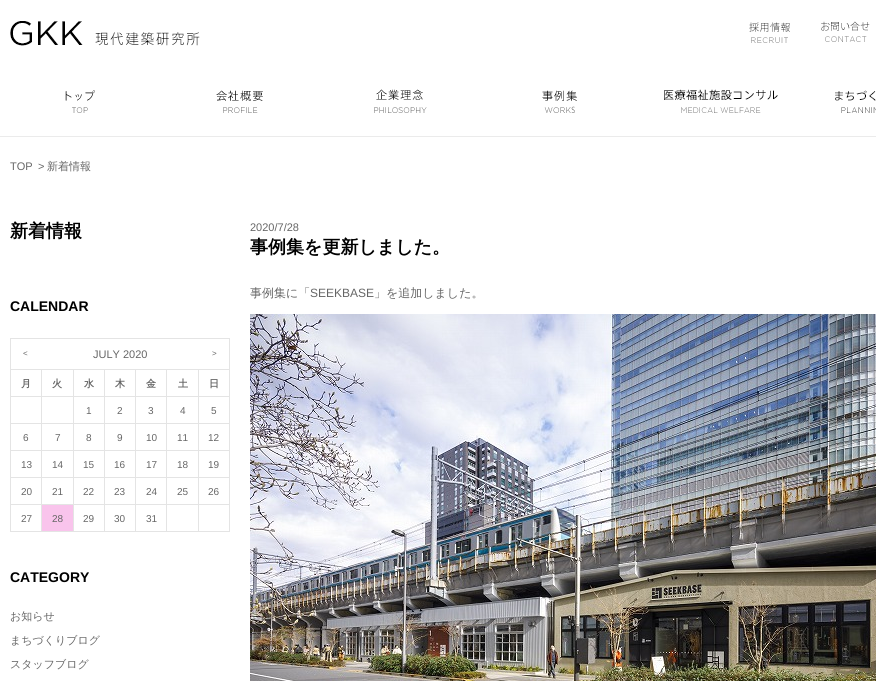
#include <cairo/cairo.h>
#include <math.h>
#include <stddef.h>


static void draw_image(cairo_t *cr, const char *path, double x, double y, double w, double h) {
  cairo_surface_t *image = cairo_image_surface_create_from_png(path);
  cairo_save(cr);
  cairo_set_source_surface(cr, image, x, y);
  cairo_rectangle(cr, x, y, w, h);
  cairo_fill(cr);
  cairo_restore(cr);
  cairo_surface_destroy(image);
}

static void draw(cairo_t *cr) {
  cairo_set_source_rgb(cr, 1, 1, 1);
  cairo_paint(cr);
  draw_image(cr, "images/1.png", 10, 21, 190, 25);
  draw_image(cr, "images/2.png", 749, 22, 42, 21);
  draw_image(cr, "images/3.png", 821, 21, 49, 21);
  draw_image(cr, "images/4.png", 65, 90, 30, 23);
  draw_image(cr, "images/5.png", 216, 90, 47, 23);
  draw_image(cr, "images/6.png", 374, 89, 53, 24);
  draw_image(cr, "images/7.png", 542, 90, 35, 23);
  draw_image(cr, "images/8.png", 664, 89, 114, 24);
  draw_image(cr, "images/9.png", 835, 90, 41, 23);
  cairo_set_source_rgb(cr, 235 / 255.0, 235 / 255.0, 235 / 255.0);
  cairo_rectangle(cr, 0, 136, 876, 1);
  cairo_fill(cr);
  cairo_set_source_rgb(cr, 228 / 255.0, 228 / 255.0, 228 / 255.0);
  cairo_rectangle(cr, 10, 338, 220, 1);
  cairo_fill(cr);
  cairo_rectangle(cr, 198, 369, 32, 1);
  cairo_fill(cr);
  cairo_rectangle(cr, 198, 396, 32, 1);
  cairo_fill(cr);
  cairo_rectangle(cr, 198, 423, 32, 1);
  cairo_fill(cr);
  cairo_rectangle(cr, 198, 450, 32, 1);
  cairo_fill(cr);
  cairo_rectangle(cr, 198, 477, 32, 1);
  cairo_fill(cr);
  cairo_rectangle(cr, 198, 504, 32, 1);
  cairo_fill(cr);
  cairo_rectangle(cr, 229, 504, 1, 28);
  cairo_fill(cr);
  cairo_rectangle(cr, 229, 477, 1, 28);
  cairo_fill(cr);
  cairo_rectangle(cr, 229, 450, 1, 28);
  cairo_fill(cr);
  cairo_rectangle(cr, 229, 423, 1, 28);
  cairo_fill(cr);
  cairo_rectangle(cr, 229, 396, 1, 28);
  cairo_fill(cr);
  cairo_rectangle(cr, 229, 369, 1, 28);
  cairo_fill(cr);
  cairo_rectangle(cr, 229, 338, 1, 32);
  cairo_fill(cr);
  cairo_rectangle(cr, 198, 531, 32, 1);
  cairo_fill(cr);
  cairo_rectangle(cr, 198, 504, 1, 28);
  cairo_fill(cr);
  cairo_rectangle(cr, 166, 504, 33, 1);
  cairo_fill(cr);
  cairo_rectangle(cr, 198, 477, 1, 28);
  cairo_fill(cr);
  cairo_rectangle(cr, 166, 477, 33, 1);
  cairo_fill(cr);
  cairo_rectangle(cr, 198, 450, 1, 28);
  cairo_fill(cr);
  cairo_rectangle(cr, 166, 450, 33, 1);
  cairo_fill(cr);
  cairo_rectangle(cr, 198, 423, 1, 28);
  cairo_fill(cr);
  cairo_rectangle(cr, 166, 423, 33, 1);
  cairo_fill(cr);
  cairo_rectangle(cr, 198, 396, 1, 28);
  cairo_fill(cr);
  cairo_rectangle(cr, 166, 396, 33, 1);
  cairo_fill(cr);
  cairo_rectangle(cr, 198, 369, 1, 28);
  cairo_fill(cr);
  cairo_rectangle(cr, 166, 369, 33, 1);
  cairo_fill(cr);
  cairo_rectangle(cr, 166, 531, 33, 1);
  cairo_fill(cr);
  cairo_rectangle(cr, 166, 504, 1, 28);
  cairo_fill(cr);
  cairo_rectangle(cr, 135, 504, 32, 1);
  cairo_fill(cr);
  cairo_rectangle(cr, 166, 477, 1, 28);
  cairo_fill(cr);
  cairo_rectangle(cr, 135, 477, 32, 1);
  cairo_fill(cr);
  cairo_rectangle(cr, 166, 450, 1, 28);
  cairo_fill(cr);
  cairo_rectangle(cr, 135, 450, 32, 1);
  cairo_fill(cr);
  cairo_rectangle(cr, 166, 423, 1, 28);
  cairo_fill(cr);
  cairo_rectangle(cr, 135, 423, 32, 1);
  cairo_fill(cr);
  cairo_rectangle(cr, 166, 396, 1, 28);
  cairo_fill(cr);
  cairo_rectangle(cr, 135, 396, 32, 1);
  cairo_fill(cr);
  cairo_rectangle(cr, 166, 369, 1, 28);
  cairo_fill(cr);
  cairo_rectangle(cr, 135, 369, 32, 1);
  cairo_fill(cr);
  cairo_rectangle(cr, 135, 531, 32, 1);
  cairo_fill(cr);
  cairo_rectangle(cr, 135, 504, 1, 28);
  cairo_fill(cr);
  cairo_rectangle(cr, 104, 504, 32, 1);
  cairo_fill(cr);
  cairo_rectangle(cr, 135, 477, 1, 28);
  cairo_fill(cr);
  cairo_rectangle(cr, 104, 477, 32, 1);
  cairo_fill(cr);
  cairo_rectangle(cr, 135, 450, 1, 28);
  cairo_fill(cr);
  cairo_rectangle(cr, 104, 450, 32, 1);
  cairo_fill(cr);
  cairo_rectangle(cr, 135, 423, 1, 28);
  cairo_fill(cr);
  cairo_rectangle(cr, 104, 423, 32, 1);
  cairo_fill(cr);
  cairo_rectangle(cr, 135, 396, 1, 28);
  cairo_fill(cr);
  cairo_rectangle(cr, 104, 396, 32, 1);
  cairo_fill(cr);
  cairo_rectangle(cr, 135, 369, 1, 28);
  cairo_fill(cr);
  cairo_rectangle(cr, 104, 369, 32, 1);
  cairo_fill(cr);
  cairo_rectangle(cr, 104, 531, 32, 1);
  cairo_fill(cr);
  cairo_rectangle(cr, 104, 504, 1, 28);
  cairo_fill(cr);
  cairo_rectangle(cr, 73, 504, 32, 1);
  cairo_fill(cr);
  cairo_rectangle(cr, 104, 477, 1, 28);
  cairo_fill(cr);
  cairo_rectangle(cr, 73, 477, 32, 1);
  cairo_fill(cr);
  cairo_rectangle(cr, 104, 450, 1, 28);
  cairo_fill(cr);
  cairo_rectangle(cr, 73, 450, 32, 1);
  cairo_fill(cr);
  cairo_rectangle(cr, 104, 423, 1, 28);
  cairo_fill(cr);
  cairo_rectangle(cr, 73, 423, 32, 1);
  cairo_fill(cr);
  cairo_rectangle(cr, 104, 396, 1, 28);
  cairo_fill(cr);
  cairo_rectangle(cr, 73, 396, 32, 1);
  cairo_fill(cr);
  cairo_rectangle(cr, 104, 369, 1, 28);
  cairo_fill(cr);
  cairo_rectangle(cr, 73, 369, 32, 1);
  cairo_fill(cr);
  cairo_rectangle(cr, 73, 531, 32, 1);
  cairo_fill(cr);
  cairo_rectangle(cr, 73, 504, 1, 28);
  cairo_fill(cr);
  cairo_rectangle(cr, 41, 504, 33, 1);
  cairo_fill(cr);
  cairo_rectangle(cr, 73, 477, 1, 28);
  cairo_fill(cr);
  cairo_rectangle(cr, 41, 477, 33, 1);
  cairo_fill(cr);
  cairo_rectangle(cr, 73, 450, 1, 28);
  cairo_fill(cr);
  cairo_rectangle(cr, 41, 450, 33, 1);
  cairo_fill(cr);
  cairo_rectangle(cr, 73, 423, 1, 28);
  cairo_fill(cr);
  cairo_rectangle(cr, 41, 423, 33, 1);
  cairo_fill(cr);
  cairo_rectangle(cr, 73, 396, 1, 28);
  cairo_fill(cr);
  cairo_rectangle(cr, 41, 396, 33, 1);
  cairo_fill(cr);
  cairo_rectangle(cr, 73, 369, 1, 28);
  cairo_fill(cr);
  cairo_rectangle(cr, 41, 369, 33, 1);
  cairo_fill(cr);
  cairo_rectangle(cr, 41, 531, 33, 1);
  cairo_fill(cr);
  cairo_rectangle(cr, 41, 504, 1, 28);
  cairo_fill(cr);
  cairo_rectangle(cr, 10, 504, 32, 1);
  cairo_fill(cr);
  cairo_rectangle(cr, 41, 477, 1, 28);
  cairo_fill(cr);
  cairo_rectangle(cr, 10, 477, 32, 1);
  cairo_fill(cr);
  cairo_rectangle(cr, 41, 450, 1, 28);
  cairo_fill(cr);
  cairo_rectangle(cr, 10, 450, 32, 1);
  cairo_fill(cr);
  cairo_rectangle(cr, 41, 423, 1, 28);
  cairo_fill(cr);
  cairo_rectangle(cr, 10, 423, 32, 1);
  cairo_fill(cr);
  cairo_rectangle(cr, 41, 396, 1, 28);
  cairo_fill(cr);
  cairo_rectangle(cr, 10, 396, 32, 1);
  cairo_fill(cr);
  cairo_rectangle(cr, 41, 369, 1, 28);
  cairo_fill(cr);
  cairo_rectangle(cr, 10, 369, 32, 1);
  cairo_fill(cr);
  cairo_rectangle(cr, 10, 531, 32, 1);
  cairo_fill(cr);
  cairo_rectangle(cr, 10, 504, 1, 28);
  cairo_fill(cr);
  cairo_rectangle(cr, 10, 477, 1, 28);
  cairo_fill(cr);
  cairo_rectangle(cr, 10, 450, 1, 28);
  cairo_fill(cr);
  cairo_rectangle(cr, 10, 423, 1, 28);
  cairo_fill(cr);
  cairo_rectangle(cr, 10, 396, 1, 28);
  cairo_fill(cr);
  cairo_rectangle(cr, 10, 369, 1, 28);
  cairo_fill(cr);
  cairo_rectangle(cr, 10, 338, 1, 32);
  cairo_fill(cr);
  cairo_set_source_rgb(cr, 249 / 255.0, 196 / 255.0, 236 / 255.0);
  cairo_rectangle(cr, 42, 505, 31, 26);
  cairo_fill(cr);
  draw_image(cr, "images/10.png", 250, 314, 626, 367);
  cairo_select_font_face(cr, "Liberation Sans", CAIRO_FONT_SLANT_NORMAL, CAIRO_FONT_WEIGHT_NORMAL);
  cairo_set_font_size(cr, 11);
  cairo_set_source_rgb(cr, 102 / 255.0, 102 / 255.0, 102 / 255.0);
  cairo_move_to(cr, 10, 170);
  cairo_show_text(cr, "TOP");
  cairo_move_to(cr, 38, 170);
  cairo_show_text(cr, ">");
  cairo_select_font_face(cr, "WenQuanYi Zen Hei Medium", CAIRO_FONT_SLANT_NORMAL, CAIRO_FONT_WEIGHT_NORMAL);
  cairo_move_to(cr, 47, 170);
  cairo_show_text(cr, "新着情報");
  cairo_select_font_face(cr, "WenQuanYi Zen Hei", CAIRO_FONT_SLANT_NORMAL, CAIRO_FONT_WEIGHT_BOLD);
  cairo_set_font_size(cr, 18);
  cairo_set_source_rgb(cr, 0, 0, 0);
  cairo_move_to(cr, 10, 237);
  cairo_show_text(cr, "新着情報");
  cairo_select_font_face(cr, "Liberation Sans", CAIRO_FONT_SLANT_NORMAL, CAIRO_FONT_WEIGHT_BOLD);
  cairo_set_font_size(cr, 14);
  cairo_move_to(cr, 10, 311);
  cairo_show_text(cr, "CALENDAR");
  cairo_select_font_face(cr, "Liberation Sans", CAIRO_FONT_SLANT_NORMAL, CAIRO_FONT_WEIGHT_NORMAL);
  cairo_set_font_size(cr, 8);
  cairo_set_source_rgb(cr, 102 / 255.0, 102 / 255.0, 102 / 255.0);
  cairo_move_to(cr, 23, 356);
  cairo_show_text(cr, "<");
  cairo_set_font_size(cr, 11);
  cairo_move_to(cr, 93, 358);
  cairo_show_text(cr, "JULY 2020");
  cairo_set_font_size(cr, 8);
  cairo_move_to(cr, 212, 356);
  cairo_show_text(cr, ">");
  cairo_select_font_face(cr, "WenQuanYi Zen Hei", CAIRO_FONT_SLANT_NORMAL, CAIRO_FONT_WEIGHT_BOLD);
  cairo_set_font_size(cr, 10);
  cairo_move_to(cr, 21, 387);
  cairo_show_text(cr, "月");
  cairo_move_to(cr, 52, 387);
  cairo_show_text(cr, "火");
  cairo_move_to(cr, 84, 387);
  cairo_show_text(cr, "水");
  cairo_move_to(cr, 115, 387);
  cairo_show_text(cr, "木");
  cairo_move_to(cr, 146, 387);
  cairo_show_text(cr, "金");
  cairo_move_to(cr, 178, 387);
  cairo_show_text(cr, "土");
  cairo_move_to(cr, 209, 387);
  cairo_show_text(cr, "日");
  cairo_select_font_face(cr, "Liberation Sans", CAIRO_FONT_SLANT_NORMAL, CAIRO_FONT_WEIGHT_NORMAL);
  cairo_move_to(cr, 86, 414);
  cairo_show_text(cr, "1");
  cairo_move_to(cr, 117, 414);
  cairo_show_text(cr, "2");
  cairo_move_to(cr, 148, 414);
  cairo_show_text(cr, "3");
  cairo_move_to(cr, 180, 414);
  cairo_show_text(cr, "4");
  cairo_move_to(cr, 211, 414);
  cairo_show_text(cr, "5");
  cairo_move_to(cr, 23, 441);
  cairo_show_text(cr, "6");
  cairo_move_to(cr, 55, 441);
  cairo_show_text(cr, "7");
  cairo_move_to(cr, 86, 441);
  cairo_show_text(cr, "8");
  cairo_move_to(cr, 117, 441);
  cairo_show_text(cr, "9");
  cairo_move_to(cr, 146, 441);
  cairo_show_text(cr, "10");
  cairo_move_to(cr, 177, 441);
  cairo_show_text(cr, "11");
  cairo_move_to(cr, 208, 441);
  cairo_show_text(cr, "12");
  cairo_move_to(cr, 21, 468);
  cairo_show_text(cr, "13");
  cairo_move_to(cr, 52, 468);
  cairo_show_text(cr, "14");
  cairo_move_to(cr, 83, 468);
  cairo_show_text(cr, "15");
  cairo_move_to(cr, 114, 468);
  cairo_show_text(cr, "16");
  cairo_move_to(cr, 146, 468);
  cairo_show_text(cr, "17");
  cairo_move_to(cr, 177, 468);
  cairo_show_text(cr, "18");
  cairo_move_to(cr, 208, 468);
  cairo_show_text(cr, "19");
  cairo_move_to(cr, 21, 495);
  cairo_show_text(cr, "20");
  cairo_move_to(cr, 52, 495);
  cairo_show_text(cr, "21");
  cairo_move_to(cr, 83, 495);
  cairo_show_text(cr, "22");
  cairo_move_to(cr, 114, 495);
  cairo_show_text(cr, "23");
  cairo_move_to(cr, 146, 495);
  cairo_show_text(cr, "24");
  cairo_move_to(cr, 177, 495);
  cairo_show_text(cr, "25");
  cairo_move_to(cr, 208, 495);
  cairo_show_text(cr, "26");
  cairo_move_to(cr, 21, 522);
  cairo_show_text(cr, "27");
  cairo_move_to(cr, 52, 522);
  cairo_show_text(cr, "28");
  cairo_move_to(cr, 83, 522);
  cairo_show_text(cr, "29");
  cairo_move_to(cr, 114, 522);
  cairo_show_text(cr, "30");
  cairo_move_to(cr, 146, 522);
  cairo_show_text(cr, "31");
  cairo_select_font_face(cr, "Liberation Sans", CAIRO_FONT_SLANT_NORMAL, CAIRO_FONT_WEIGHT_BOLD);
  cairo_set_font_size(cr, 14);
  cairo_set_source_rgb(cr, 0, 0, 0);
  cairo_move_to(cr, 10, 582);
  cairo_show_text(cr, "CATEGORY");
  cairo_select_font_face(cr, "WenQuanYi Zen Hei Medium", CAIRO_FONT_SLANT_NORMAL, CAIRO_FONT_WEIGHT_NORMAL);
  cairo_set_font_size(cr, 11);
  cairo_set_source_rgb(cr, 102 / 255.0, 102 / 255.0, 102 / 255.0);
  cairo_move_to(cr, 10, 620);
  cairo_show_text(cr, "お知らせ");
  cairo_move_to(cr, 10, 644);
  cairo_show_text(cr, "まちづくりブログ");
  cairo_move_to(cr, 10, 668);
  cairo_show_text(cr, "スタッフブログ");
  cairo_select_font_face(cr, "Liberation Sans", CAIRO_FONT_SLANT_NORMAL, CAIRO_FONT_WEIGHT_NORMAL);
  cairo_move_to(cr, 250, 231);
  cairo_show_text(cr, "2020/7/28");
  cairo_select_font_face(cr, "WenQuanYi Zen Hei", CAIRO_FONT_SLANT_NORMAL, CAIRO_FONT_WEIGHT_BOLD);
  cairo_set_font_size(cr, 18);
  cairo_set_source_rgb(cr, 0, 0, 0);
  cairo_move_to(cr, 250, 253);
  cairo_show_text(cr, "事例集を更新しました。");
  cairo_select_font_face(cr, "WenQuanYi Zen Hei Medium", CAIRO_FONT_SLANT_NORMAL, CAIRO_FONT_WEIGHT_NORMAL);
  cairo_set_font_size(cr, 12);
  cairo_set_source_rgb(cr, 102 / 255.0, 102 / 255.0, 102 / 255.0);
  cairo_move_to(cr, 250, 297);
  cairo_show_text(cr, "事例集に「");
  cairo_select_font_face(cr, "Liberation Sans", CAIRO_FONT_SLANT_NORMAL, CAIRO_FONT_WEIGHT_NORMAL);
  cairo_move_to(cr, 310, 297);
  cairo_show_text(cr, "SEEKBASE");
  cairo_select_font_face(cr, "WenQuanYi Zen Hei Medium", CAIRO_FONT_SLANT_NORMAL, CAIRO_FONT_WEIGHT_NORMAL);
  cairo_move_to(cr, 374, 297);
  cairo_show_text(cr, "」を追加しました。");
}

int main(void) {
  cairo_surface_t *surface = cairo_image_surface_create(CAIRO_FORMAT_RGB24, 876, 681);
  cairo_t *cr = cairo_create(surface);
  cairo_font_options_t *options = cairo_font_options_create();
  cairo_font_options_set_hint_metrics(options, CAIRO_HINT_METRICS_OFF);
  cairo_font_options_set_hint_style(options, CAIRO_HINT_STYLE_NONE);
  cairo_set_font_options(cr, options);
  cairo_set_miter_limit(cr, 4);
  draw(cr);
  cairo_surface_write_to_png(surface, "out.png");
  cairo_font_options_destroy(options);
  cairo_destroy(cr);
  cairo_surface_destroy(surface);
  return 0;
}
